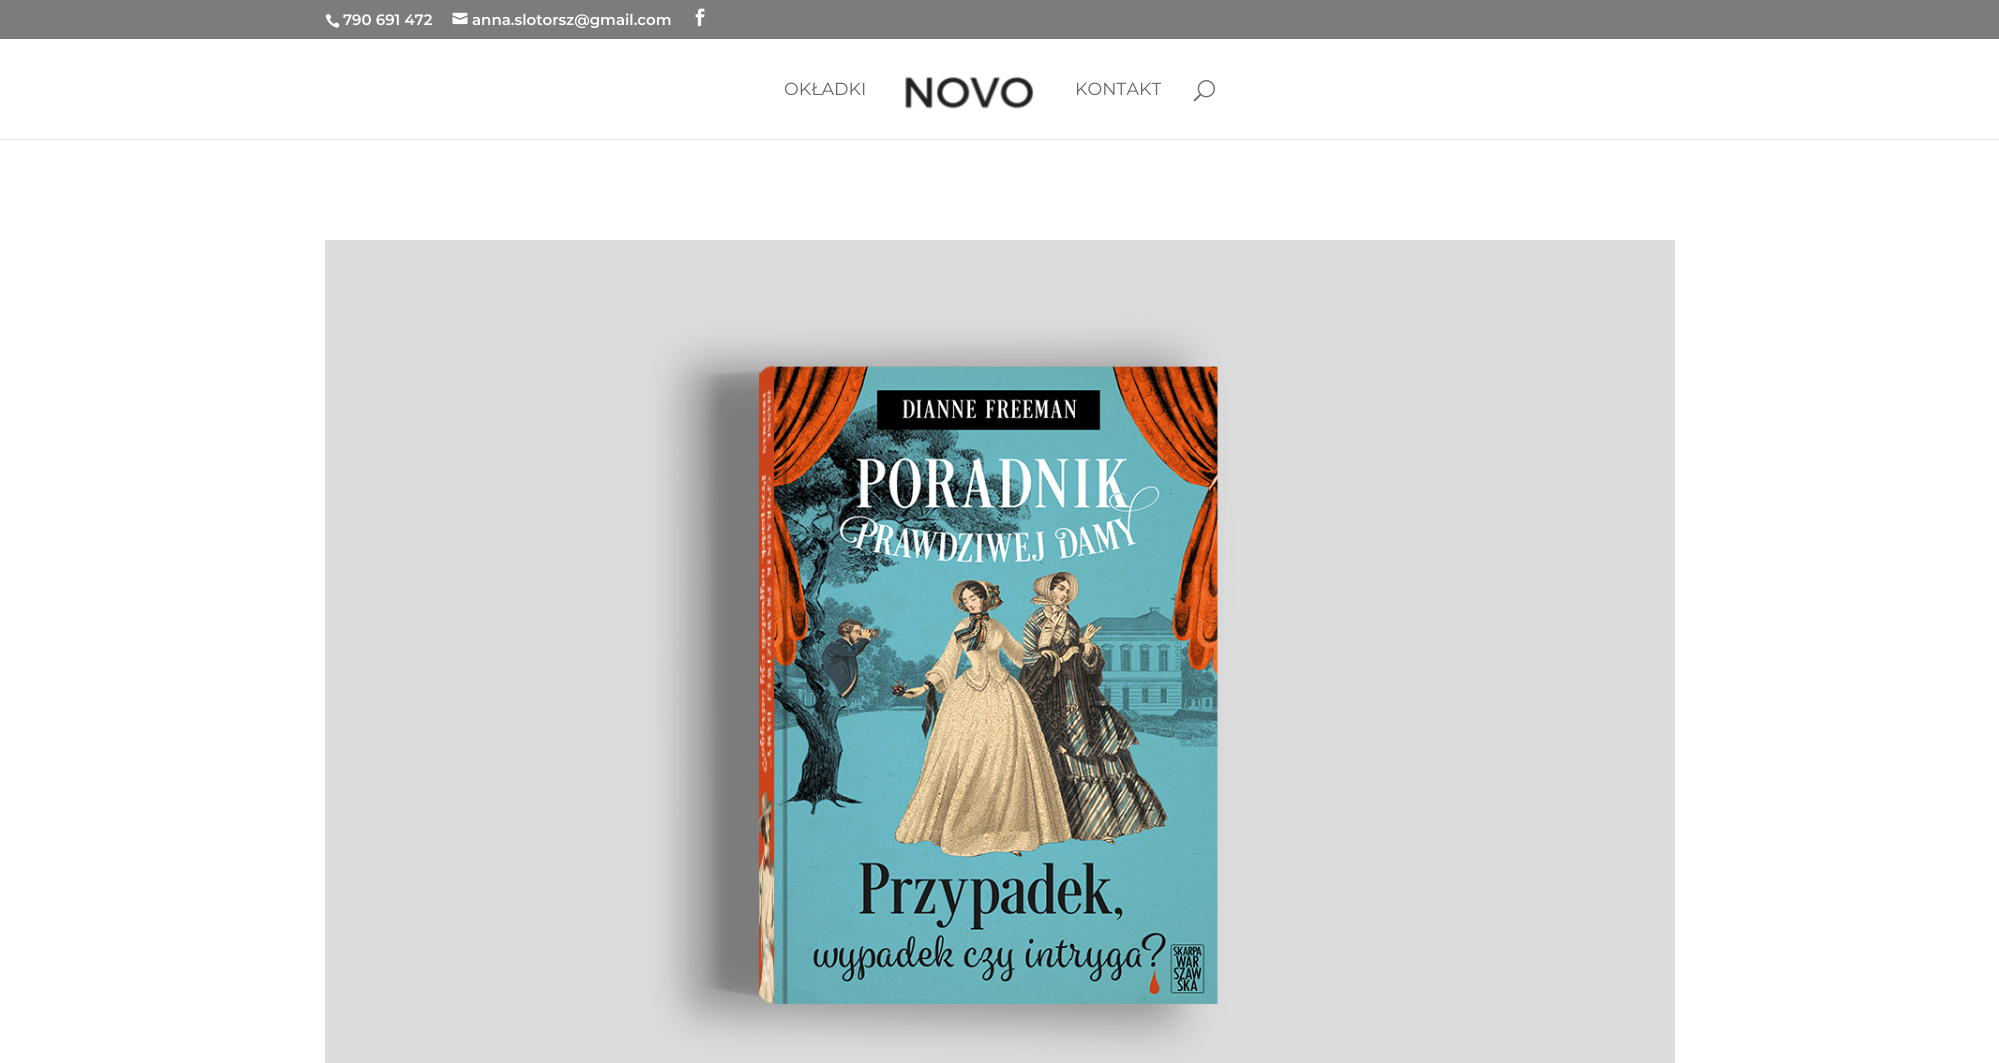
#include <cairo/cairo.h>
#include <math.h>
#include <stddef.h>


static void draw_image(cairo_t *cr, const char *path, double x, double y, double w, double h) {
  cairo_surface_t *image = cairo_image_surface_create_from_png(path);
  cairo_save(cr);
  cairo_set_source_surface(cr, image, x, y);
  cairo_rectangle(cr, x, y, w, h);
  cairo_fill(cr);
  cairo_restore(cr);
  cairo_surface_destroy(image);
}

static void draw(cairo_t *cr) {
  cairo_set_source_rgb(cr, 1, 1, 1);
  cairo_paint(cr);
  cairo_set_source_rgb(cr, 124 / 255.0, 124 / 255.0, 124 / 255.0);
  cairo_rectangle(cr, 0, 0, 1999, 39);
  cairo_fill(cr);
  draw_image(cr, "images/1.png", 325, 14, 15, 14);
  draw_image(cr, "images/2.png", 452, 12, 16, 13);
  draw_image(cr, "images/3.png", 695, 8, 10, 19);
  cairo_set_source_rgb(cr, 230 / 255.0, 230 / 255.0, 230 / 255.0);
  cairo_rectangle(cr, 0, 139, 1999, 1);
  cairo_fill(cr);
  draw_image(cr, "images/4.png", 905, 76, 129, 33);
  draw_image(cr, "images/5.png", 1193, 80, 22, 22);
  draw_image(cr, "images/6.png", 325, 240, 1350, 823);
  cairo_select_font_face(cr, "Montserrat SemiBold", CAIRO_FONT_SLANT_NORMAL, CAIRO_FONT_WEIGHT_NORMAL);
  cairo_set_font_size(cr, 15);
  cairo_set_source_rgb(cr, 1, 1, 1);
  cairo_move_to(cr, 343, 25);
  cairo_show_text(cr, "790 691 472");
  cairo_move_to(cr, 472, 25);
  cairo_show_text(cr, "anna.slotorsz@gmail.com");
  cairo_select_font_face(cr, "Montserrat", CAIRO_FONT_SLANT_NORMAL, CAIRO_FONT_WEIGHT_NORMAL);
  cairo_set_font_size(cr, 17.5);
  cairo_set_source_rgb(cr, 102 / 255.0, 102 / 255.0, 102 / 255.0);
  cairo_move_to(cr, 784, 95);
  cairo_show_text(cr, "OKŁADKI");
  cairo_move_to(cr, 1075, 95);
  cairo_show_text(cr, "KONTAKT");
}

int main(void) {
  cairo_surface_t *surface = cairo_image_surface_create(CAIRO_FORMAT_RGB24, 1999, 1063);
  cairo_t *cr = cairo_create(surface);
  cairo_font_options_t *options = cairo_font_options_create();
  cairo_font_options_set_hint_metrics(options, CAIRO_HINT_METRICS_OFF);
  cairo_font_options_set_hint_style(options, CAIRO_HINT_STYLE_NONE);
  cairo_set_font_options(cr, options);
  cairo_set_miter_limit(cr, 4);
  draw(cr);
  cairo_surface_write_to_png(surface, "out.png");
  cairo_font_options_destroy(options);
  cairo_destroy(cr);
  cairo_surface_destroy(surface);
  return 0;
}
